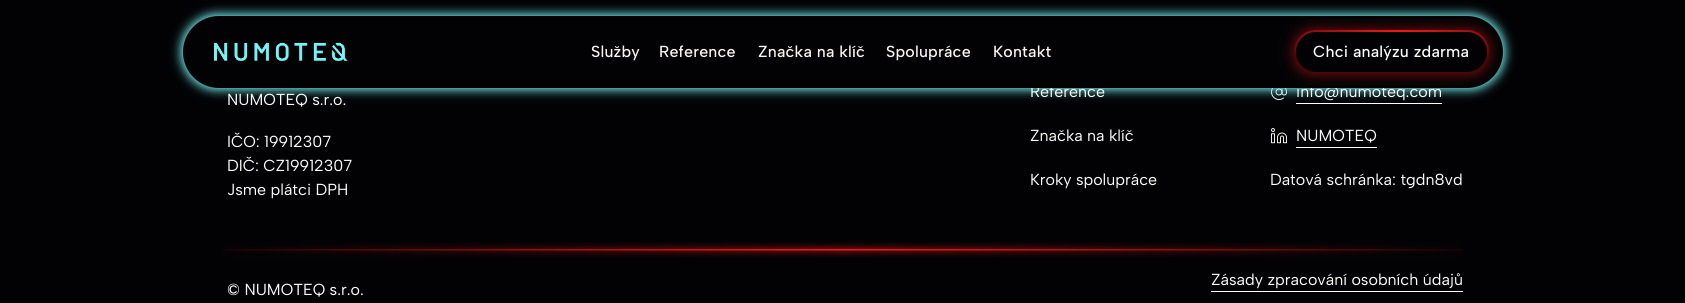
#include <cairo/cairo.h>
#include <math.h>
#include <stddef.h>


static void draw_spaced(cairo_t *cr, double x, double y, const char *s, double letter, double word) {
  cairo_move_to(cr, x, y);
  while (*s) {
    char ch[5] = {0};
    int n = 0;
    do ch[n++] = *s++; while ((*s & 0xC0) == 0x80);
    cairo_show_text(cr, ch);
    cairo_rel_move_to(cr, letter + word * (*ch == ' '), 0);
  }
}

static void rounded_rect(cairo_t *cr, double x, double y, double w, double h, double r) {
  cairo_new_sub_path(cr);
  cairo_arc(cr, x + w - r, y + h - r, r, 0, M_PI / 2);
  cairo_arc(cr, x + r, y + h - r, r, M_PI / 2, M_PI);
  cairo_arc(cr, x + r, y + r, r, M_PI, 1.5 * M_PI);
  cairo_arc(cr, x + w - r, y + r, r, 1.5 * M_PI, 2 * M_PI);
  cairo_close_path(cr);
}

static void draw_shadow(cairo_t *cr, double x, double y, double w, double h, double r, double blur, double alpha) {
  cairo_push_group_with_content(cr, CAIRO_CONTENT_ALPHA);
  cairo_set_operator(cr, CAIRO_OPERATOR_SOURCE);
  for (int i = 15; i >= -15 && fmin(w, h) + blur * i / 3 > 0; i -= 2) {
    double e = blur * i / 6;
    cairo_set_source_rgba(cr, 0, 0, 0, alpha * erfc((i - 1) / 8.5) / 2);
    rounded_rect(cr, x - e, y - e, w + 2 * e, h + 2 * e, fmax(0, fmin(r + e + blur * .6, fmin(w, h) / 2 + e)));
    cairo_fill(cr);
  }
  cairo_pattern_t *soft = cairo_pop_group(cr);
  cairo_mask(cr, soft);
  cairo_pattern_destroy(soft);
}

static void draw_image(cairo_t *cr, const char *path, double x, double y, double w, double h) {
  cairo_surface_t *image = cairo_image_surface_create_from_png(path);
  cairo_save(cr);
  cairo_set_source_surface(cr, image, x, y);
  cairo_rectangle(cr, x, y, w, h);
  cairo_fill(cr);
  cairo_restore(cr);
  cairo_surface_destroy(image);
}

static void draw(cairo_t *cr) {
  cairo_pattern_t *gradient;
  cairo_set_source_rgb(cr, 2 / 255.0, 2 / 255.0, 4 / 255.0);
  cairo_paint(cr);
  draw_image(cr, "images/2.png", 1271, 88, 16, 12);
  cairo_set_source_rgb(cr, 1, 1, 1);
  cairo_rectangle(cr, 1296, 103, 146, 1);
  cairo_fill(cr);
  cairo_set_source_rgb(cr, 115 / 255.0, 243 / 255.0, 245 / 255.0);
  draw_shadow(cr, 181, 14, 1324, 76, 38, 5, 1);
  draw_image(cr, "images/3.png", 1271, 128, 16, 16);
  cairo_set_source_rgb(cr, 1, 1, 1);
  cairo_rectangle(cr, 1296, 147, 81, 1);
  cairo_fill(cr);
  draw_image(cr, "images/4.png", 223, 242, 1240, 16);
  cairo_rectangle(cr, 1211, 291, 252, 1);
  cairo_fill(cr);
  cairo_select_font_face(cr, "Albert Sans", CAIRO_FONT_SLANT_NORMAL, CAIRO_FONT_WEIGHT_NORMAL);
  cairo_set_font_size(cr, 16);
  cairo_move_to(cr, 227, 105);
  cairo_show_text(cr, "NUMOTEQ s.r.o.");
  cairo_move_to(cr, 227, 147);
  cairo_show_text(cr, "IČO: 19912307");
  cairo_move_to(cr, 227, 171);
  cairo_show_text(cr, "DIČ: CZ19912307");
  cairo_move_to(cr, 227, 195);
  cairo_show_text(cr, "Jsme plátci DPH");
  cairo_move_to(cr, 1030, 97);
  cairo_show_text(cr, "Reference");
  cairo_move_to(cr, 1030, 141);
  cairo_show_text(cr, "Značka na klíč");
  cairo_move_to(cr, 1030, 185);
  cairo_show_text(cr, "Kroky spolupráce");
  cairo_move_to(cr, 1296, 97);
  cairo_show_text(cr, "info@numoteq.com");
  cairo_set_source_rgb(cr, 2 / 255.0, 2 / 255.0, 4 / 255.0);
  rounded_rect(cr, 183, 16, 1320, 72, 36);
  cairo_fill(cr);
  draw_image(cr, "images/1.png", 214, 42, 134, 19);
  cairo_set_source_rgb(cr, 246 / 255.0, 23 / 255.0, 23 / 255.0);
  draw_shadow(cr, 1294, 30, 195, 44, 22, 6.5, 0.5);
  gradient = cairo_pattern_create_radial(0, 0, 0, 0, 0, 1);
  cairo_pattern_set_matrix(gradient, &(cairo_matrix_t){1.0 / 146, 0, 0, 1.0 / 33, -1.0 * 1399 / 146, -1.0 * 32 / 33});
  cairo_pattern_add_color_stop_rgba(gradient, 0, 246 / 255.0, 23 / 255.0, 23 / 255.0, 1);
  cairo_pattern_add_color_stop_rgba(gradient, 1, 246 / 255.0, 23 / 255.0, 23 / 255.0, 0);
  cairo_set_source(cr, gradient);
  cairo_pattern_destroy(gradient);
  rounded_rect(cr, 1294, 30, 195, 44, 22);
  cairo_fill(cr);
  cairo_set_source_rgb(cr, 2 / 255.0, 2 / 255.0, 4 / 255.0);
  rounded_rect(cr, 1296, 32, 191, 40, 20);
  cairo_fill(cr);
  cairo_select_font_face(cr, "Albert Sans Medium", CAIRO_FONT_SLANT_NORMAL, CAIRO_FONT_WEIGHT_NORMAL);
  cairo_set_source_rgb(cr, 1, 1, 1);
  draw_spaced(cr, 1313, 57, "Chci analýzu zdarma", 0.2, 0);
  cairo_set_source_rgb(cr, 253 / 255.0, 247 / 255.0, 243 / 255.0);
  draw_spaced(cr, 993, 57, "Kontakt", 0.2, 0);
  draw_spaced(cr, 886, 57, "Spolupráce", 0.2, 0);
  draw_spaced(cr, 758, 57, "Značka na klíč", 0.2, 0);
  draw_spaced(cr, 659, 57, "Reference", 0.2, 0);
  draw_spaced(cr, 591, 57, "Služby", 0.2, 0);
  cairo_select_font_face(cr, "Albert Sans", CAIRO_FONT_SLANT_NORMAL, CAIRO_FONT_WEIGHT_NORMAL);
  cairo_set_source_rgb(cr, 1, 1, 1);
  cairo_move_to(cr, 1296, 141);
  cairo_show_text(cr, "NUMOTEQ");
  cairo_move_to(cr, 1270, 185);
  cairo_show_text(cr, "Datová schránka: tgdn8vd");
  cairo_move_to(cr, 227, 295);
  cairo_show_text(cr, "© NUMOTEQ s.r.o.");
  cairo_move_to(cr, 1211, 285);
  cairo_show_text(cr, "Zásady zpracování osobních údajů");
}

int main(void) {
  cairo_surface_t *surface = cairo_image_surface_create(CAIRO_FORMAT_RGB24, 1685, 303);
  cairo_t *cr = cairo_create(surface);
  cairo_font_options_t *options = cairo_font_options_create();
  cairo_font_options_set_hint_metrics(options, CAIRO_HINT_METRICS_OFF);
  cairo_font_options_set_hint_style(options, CAIRO_HINT_STYLE_NONE);
  cairo_set_font_options(cr, options);
  cairo_set_miter_limit(cr, 4);
  draw(cr);
  cairo_surface_write_to_png(surface, "out.png");
  cairo_font_options_destroy(options);
  cairo_destroy(cr);
  cairo_surface_destroy(surface);
  return 0;
}
